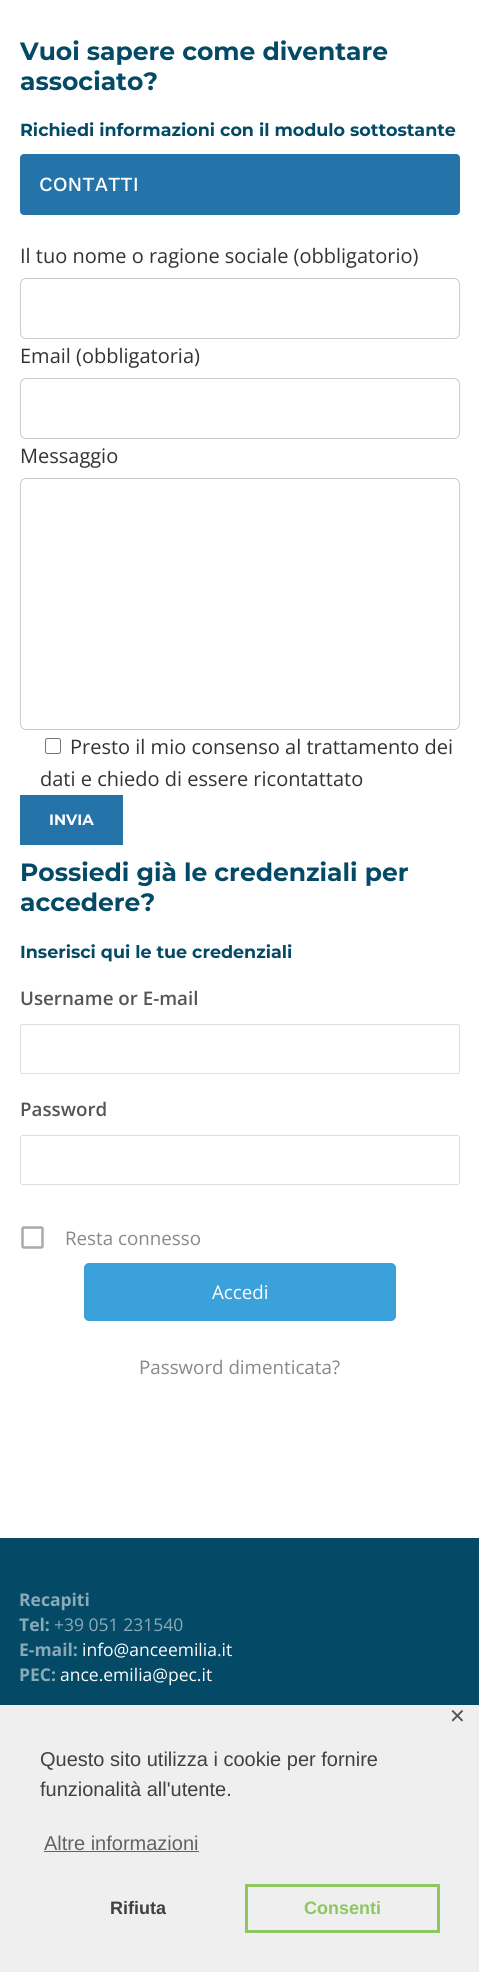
#include <cairo/cairo.h>
#include <math.h>
#include <stddef.h>


static void rounded_rect(cairo_t *cr, double x, double y, double w, double h, double r) {
  cairo_new_sub_path(cr);
  cairo_arc(cr, x + w - r, y + h - r, r, 0, M_PI / 2);
  cairo_arc(cr, x + r, y + h - r, r, M_PI / 2, M_PI);
  cairo_arc(cr, x + r, y + r, r, M_PI, 1.5 * M_PI);
  cairo_arc(cr, x + w - r, y + r, r, 1.5 * M_PI, 2 * M_PI);
  cairo_close_path(cr);
}

static void draw_image(cairo_t *cr, const char *path, double x, double y, double w, double h) {
  cairo_surface_t *image = cairo_image_surface_create_from_png(path);
  cairo_save(cr);
  cairo_set_source_surface(cr, image, x, y);
  cairo_rectangle(cr, x, y, w, h);
  cairo_fill(cr);
  cairo_restore(cr);
  cairo_surface_destroy(image);
}

static void draw(cairo_t *cr) {
  cairo_set_source_rgb(cr, 1, 1, 1);
  cairo_paint(cr);
  cairo_set_source_rgb(cr, 37 / 255.0, 116 / 255.0, 169 / 255.0);
  rounded_rect(cr, 20, 154, 440, 61, 4);
  cairo_fill(cr);
  rounded_rect(cr, 20.5, 278.5, 439, 60, 5.5);
  cairo_set_source_rgb(cr, 204 / 255.0, 204 / 255.0, 204 / 255.0);
  cairo_set_line_width(cr, 1);
  cairo_stroke(cr);
  rounded_rect(cr, 20.5, 378.5, 439, 60, 5.5);
  cairo_stroke(cr);
  rounded_rect(cr, 20.5, 478.5, 439, 251, 5.5);
  cairo_stroke(cr);
  rounded_rect(cr, 45.5, 738.5, 15, 15, 2);
  cairo_set_source_rgb(cr, 118 / 255.0, 118 / 255.0, 118 / 255.0);
  cairo_stroke(cr);
  cairo_set_source_rgb(cr, 37 / 255.0, 116 / 255.0, 169 / 255.0);
  cairo_rectangle(cr, 20, 795, 103, 50);
  cairo_fill(cr);
  rounded_rect(cr, 20.5, 1024.5, 439, 49, 2);
  cairo_set_source_rgb(cr, 221 / 255.0, 221 / 255.0, 221 / 255.0);
  cairo_stroke(cr);
  rounded_rect(cr, 20.5, 1135.5, 439, 49, 2);
  cairo_stroke(cr);
  draw_image(cr, "images/1.png", 21, 1226, 23, 23);
  cairo_set_source_rgb(cr, 59 / 255.0, 161 / 255.0, 218 / 255.0);
  rounded_rect(cr, 84, 1263, 312, 58, 5);
  cairo_fill(cr);
  cairo_set_source_rgb(cr, 4 / 255.0, 74 / 255.0, 103 / 255.0);
  cairo_rectangle(cr, 0, 1538, 479, 167);
  cairo_fill(cr);
  cairo_set_source_rgb(cr, 239 / 255.0, 239 / 255.0, 239 / 255.0);
  cairo_rectangle(cr, 0, 1705, 479, 267);
  cairo_fill(cr);
  cairo_set_source_rgb(cr, 99 / 255.0, 99 / 255.0, 99 / 255.0);
  cairo_rectangle(cr, 44, 1851, 155, 1);
  cairo_fill(cr);
  cairo_rectangle(cr, 246.5, 1885.5, 192, 46);
  cairo_set_source_rgb(cr, 142 / 255.0, 199 / 255.0, 96 / 255.0);
  cairo_set_line_width(cr, 3);
  cairo_stroke(cr);
  cairo_select_font_face(cr, "Montserrat", CAIRO_FONT_SLANT_NORMAL, CAIRO_FONT_WEIGHT_BOLD);
  cairo_set_font_size(cr, 25);
  cairo_set_source_rgb(cr, 4 / 255.0, 74 / 255.0, 103 / 255.0);
  cairo_move_to(cr, 20, 60);
  cairo_show_text(cr, "Vuoi sapere come diventare");
  cairo_move_to(cr, 20, 90);
  cairo_show_text(cr, "associato?");
  cairo_set_font_size(cr, 17.5);
  cairo_move_to(cr, 20, 136);
  cairo_show_text(cr, "Richiedi informazioni con il modulo sottostante");
  cairo_select_font_face(cr, "Work Sans Medium", CAIRO_FONT_SLANT_NORMAL, CAIRO_FONT_WEIGHT_NORMAL);
  cairo_set_font_size(cr, 20);
  cairo_set_source_rgb(cr, 1, 1, 1);
  cairo_move_to(cr, 39, 191);
  cairo_show_text(cr, "CONTATTI");
  cairo_select_font_face(cr, "Open Sans", CAIRO_FONT_SLANT_NORMAL, CAIRO_FONT_WEIGHT_NORMAL);
  cairo_set_source_rgb(cr, 51 / 255.0, 51 / 255.0, 51 / 255.0);
  cairo_move_to(cr, 20, 263);
  cairo_show_text(cr, "Il tuo nome o ragione sociale (obbligatorio)");
  cairo_move_to(cr, 20, 363);
  cairo_show_text(cr, "Email (obbligatoria)");
  cairo_move_to(cr, 20, 463);
  cairo_show_text(cr, "Messaggio");
  cairo_move_to(cr, 70, 754);
  cairo_show_text(cr, "Presto il mio consenso al trattamento dei");
  cairo_move_to(cr, 40, 786);
  cairo_show_text(cr, "dati e chiedo di essere ricontattato");
  cairo_select_font_face(cr, "Montserrat", CAIRO_FONT_SLANT_NORMAL, CAIRO_FONT_WEIGHT_BOLD);
  cairo_set_font_size(cr, 15);
  cairo_set_source_rgb(cr, 1, 1, 1);
  cairo_move_to(cr, 49, 825);
  cairo_show_text(cr, "INVIA");
  cairo_set_font_size(cr, 25);
  cairo_set_source_rgb(cr, 4 / 255.0, 74 / 255.0, 103 / 255.0);
  cairo_move_to(cr, 20, 881);
  cairo_show_text(cr, "Possiedi già le credenziali per");
  cairo_move_to(cr, 20, 911);
  cairo_show_text(cr, "accedere?");
  cairo_set_font_size(cr, 17.5);
  cairo_move_to(cr, 20, 958);
  cairo_show_text(cr, "Inserisci qui le tue credenziali");
  cairo_select_font_face(cr, "Open Sans SemiBold", CAIRO_FONT_SLANT_NORMAL, CAIRO_FONT_WEIGHT_NORMAL);
  cairo_set_font_size(cr, 18.75);
  cairo_set_source_rgb(cr, 85 / 255.0, 85 / 255.0, 85 / 255.0);
  cairo_move_to(cr, 20, 1005);
  cairo_show_text(cr, "Username or E-mail");
  cairo_move_to(cr, 20, 1116);
  cairo_show_text(cr, "Password");
  cairo_select_font_face(cr, "Open Sans", CAIRO_FONT_SLANT_NORMAL, CAIRO_FONT_WEIGHT_NORMAL);
  cairo_set_source_rgb(cr, 136 / 255.0, 136 / 255.0, 136 / 255.0);
  cairo_move_to(cr, 65, 1245);
  cairo_show_text(cr, "Resta connesso");
  cairo_set_source_rgb(cr, 1, 1, 1);
  cairo_move_to(cr, 212, 1299);
  cairo_show_text(cr, "Accedi");
  cairo_set_source_rgb(cr, 136 / 255.0, 136 / 255.0, 136 / 255.0);
  cairo_move_to(cr, 139, 1374);
  cairo_show_text(cr, "Password dimenticata?");
  cairo_select_font_face(cr, "Open Sans", CAIRO_FONT_SLANT_NORMAL, CAIRO_FONT_WEIGHT_BOLD);
  cairo_set_font_size(cr, 17.5);
  cairo_set_source_rgb(cr, 137 / 255.0, 170 / 255.0, 183 / 255.0);
  cairo_move_to(cr, 19, 1606);
  cairo_show_text(cr, "Recapiti");
  cairo_move_to(cr, 19, 1631);
  cairo_show_text(cr, "Tel:");
  cairo_select_font_face(cr, "Open Sans", CAIRO_FONT_SLANT_NORMAL, CAIRO_FONT_WEIGHT_NORMAL);
  cairo_move_to(cr, 54, 1631);
  cairo_show_text(cr, "+39 051 231540");
  cairo_select_font_face(cr, "Open Sans", CAIRO_FONT_SLANT_NORMAL, CAIRO_FONT_WEIGHT_BOLD);
  cairo_move_to(cr, 19, 1656);
  cairo_show_text(cr, "E-mail:");
  cairo_select_font_face(cr, "Open Sans", CAIRO_FONT_SLANT_NORMAL, CAIRO_FONT_WEIGHT_NORMAL);
  cairo_set_source_rgb(cr, 1, 1, 1);
  cairo_move_to(cr, 82, 1656);
  cairo_show_text(cr, "info@anceemilia.it");
  cairo_select_font_face(cr, "Open Sans", CAIRO_FONT_SLANT_NORMAL, CAIRO_FONT_WEIGHT_BOLD);
  cairo_set_source_rgb(cr, 137 / 255.0, 170 / 255.0, 183 / 255.0);
  cairo_move_to(cr, 19, 1681);
  cairo_show_text(cr, "PEC:");
  cairo_select_font_face(cr, "Open Sans", CAIRO_FONT_SLANT_NORMAL, CAIRO_FONT_WEIGHT_NORMAL);
  cairo_set_source_rgb(cr, 1, 1, 1);
  cairo_move_to(cr, 60, 1681);
  cairo_show_text(cr, "ance.emilia@pec.it");
  cairo_select_font_face(cr, "DejaVu Sans", CAIRO_FONT_SLANT_NORMAL, CAIRO_FONT_WEIGHT_NORMAL);
  cairo_set_font_size(cr, 20);
  cairo_set_source_rgb(cr, 85 / 255.0, 85 / 255.0, 85 / 255.0);
  cairo_move_to(cr, 449, 1723);
  cairo_show_text(cr, "✕");
  cairo_select_font_face(cr, "Liberation Sans", CAIRO_FONT_SLANT_NORMAL, CAIRO_FONT_WEIGHT_NORMAL);
  cairo_set_source_rgb(cr, 64 / 255.0, 64 / 255.0, 64 / 255.0);
  cairo_move_to(cr, 40, 1766);
  cairo_show_text(cr, "Questo sito utilizza i cookie per fornire");
  cairo_move_to(cr, 40, 1796);
  cairo_show_text(cr, "funzionalità all'utente.");
  cairo_set_source_rgb(cr, 99 / 255.0, 99 / 255.0, 99 / 255.0);
  cairo_move_to(cr, 44, 1850);
  cairo_show_text(cr, "Altre informazioni");
  cairo_select_font_face(cr, "Liberation Sans", CAIRO_FONT_SLANT_NORMAL, CAIRO_FONT_WEIGHT_BOLD);
  cairo_set_font_size(cr, 18);
  cairo_set_source_rgb(cr, 64 / 255.0, 64 / 255.0, 64 / 255.0);
  cairo_move_to(cr, 110, 1914);
  cairo_show_text(cr, "Rifiuta");
  cairo_set_source_rgb(cr, 142 / 255.0, 199 / 255.0, 96 / 255.0);
  cairo_move_to(cr, 304, 1914);
  cairo_show_text(cr, "Consenti");
}

int main(void) {
  cairo_surface_t *surface = cairo_image_surface_create(CAIRO_FORMAT_RGB24, 479, 1972);
  cairo_t *cr = cairo_create(surface);
  cairo_font_options_t *options = cairo_font_options_create();
  cairo_font_options_set_hint_metrics(options, CAIRO_HINT_METRICS_OFF);
  cairo_font_options_set_hint_style(options, CAIRO_HINT_STYLE_NONE);
  cairo_set_font_options(cr, options);
  cairo_set_miter_limit(cr, 4);
  draw(cr);
  cairo_surface_write_to_png(surface, "out.png");
  cairo_font_options_destroy(options);
  cairo_destroy(cr);
  cairo_surface_destroy(surface);
  return 0;
}
